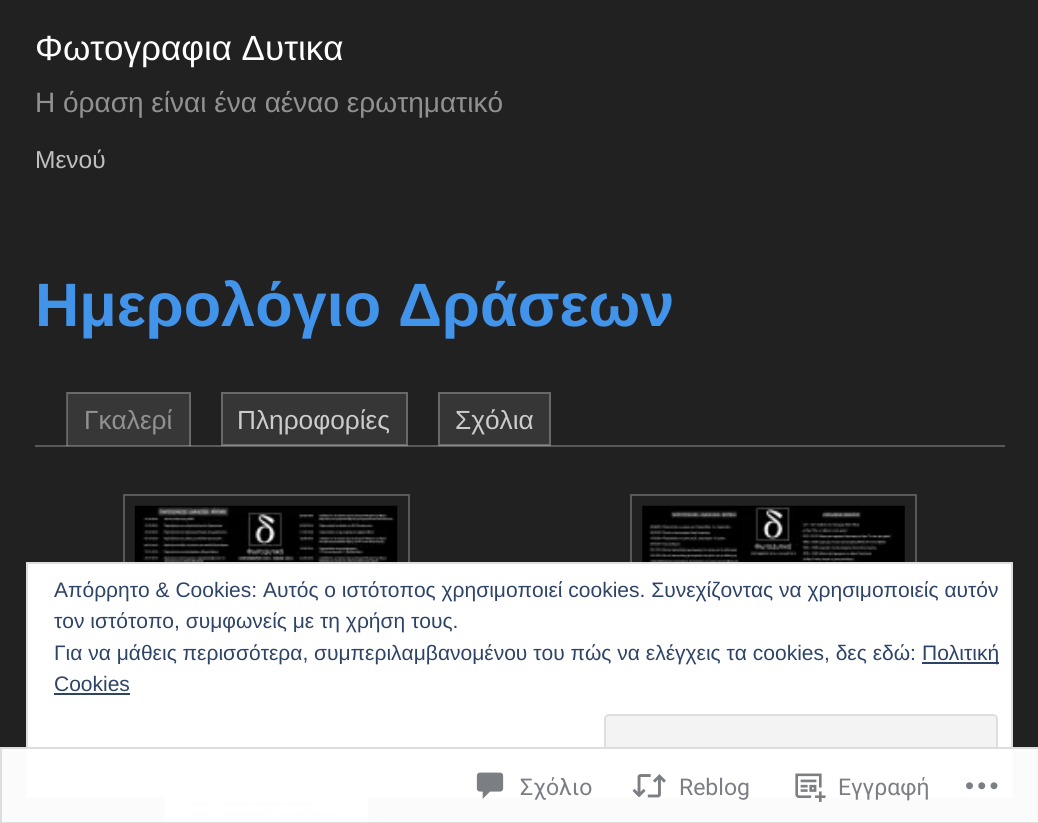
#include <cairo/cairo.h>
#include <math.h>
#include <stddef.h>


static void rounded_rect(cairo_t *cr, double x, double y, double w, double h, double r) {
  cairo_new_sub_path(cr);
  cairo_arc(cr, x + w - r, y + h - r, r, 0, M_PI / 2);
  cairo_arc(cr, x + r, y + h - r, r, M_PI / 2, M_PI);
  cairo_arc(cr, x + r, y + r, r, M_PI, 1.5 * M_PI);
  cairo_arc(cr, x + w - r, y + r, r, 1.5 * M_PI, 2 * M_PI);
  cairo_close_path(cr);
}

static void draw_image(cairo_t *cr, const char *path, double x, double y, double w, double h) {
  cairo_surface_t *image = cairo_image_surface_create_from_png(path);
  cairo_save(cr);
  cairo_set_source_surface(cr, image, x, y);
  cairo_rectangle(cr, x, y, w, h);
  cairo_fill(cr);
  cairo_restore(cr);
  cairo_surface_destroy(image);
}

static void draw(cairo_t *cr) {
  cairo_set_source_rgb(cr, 33 / 255.0, 33 / 255.0, 33 / 255.0);
  cairo_paint(cr);
  cairo_set_source_rgb(cr, 54 / 255.0, 54 / 255.0, 54 / 255.0);
  cairo_rectangle(cr, 438, 392, 113, 53);
  cairo_fill(cr);
  cairo_rectangle(cr, 221, 392, 187, 53);
  cairo_fill(cr);
  cairo_set_source_rgb(cr, 55 / 255.0, 55 / 255.0, 55 / 255.0);
  cairo_rectangle(cr, 67, 392, 124, 53);
  cairo_fill(cr);
  cairo_set_source_rgb(cr, 89 / 255.0, 89 / 255.0, 89 / 255.0);
  cairo_rectangle(cr, 35, 445, 970, 2);
  cairo_fill(cr);
  cairo_set_source_rgb(cr, 104 / 255.0, 104 / 255.0, 104 / 255.0);
  cairo_rectangle(cr, 438, 445, 113, 1);
  cairo_fill(cr);
  cairo_rectangle(cr, 221, 445, 187, 1);
  cairo_fill(cr);
  cairo_set_source_rgb(cr, 106 / 255.0, 106 / 255.0, 106 / 255.0);
  cairo_rectangle(cr, 67, 445, 124, 1);
  cairo_fill(cr);
  cairo_set_source_rgb(cr, 105 / 255.0, 105 / 255.0, 105 / 255.0);
  cairo_new_path(cr);
  cairo_move_to(cr, 66, 392);
  cairo_line_to(cr, 191, 392);
  cairo_line_to(cr, 189, 394);
  cairo_line_to(cr, 68, 394);
  cairo_close_path(cr);
  cairo_fill(cr);
  cairo_set_source_rgba(cr, 221 / 255.0, 221 / 255.0, 221 / 255.0, 0.3);
  cairo_new_path(cr);
  cairo_move_to(cr, 191, 392);
  cairo_line_to(cr, 191, 446);
  cairo_line_to(cr, 189, 446);
  cairo_line_to(cr, 189, 394);
  cairo_close_path(cr);
  cairo_fill(cr);
  cairo_new_path(cr);
  cairo_move_to(cr, 66, 446);
  cairo_line_to(cr, 66, 392);
  cairo_line_to(cr, 68, 394);
  cairo_line_to(cr, 68, 446);
  cairo_close_path(cr);
  cairo_fill(cr);
  cairo_rectangle(cr, 222, 393, 185, 52);
  cairo_stroke(cr);
  cairo_rectangle(cr, 439, 393, 111, 52);
  cairo_stroke(cr);
  cairo_rectangle(cr, 124, 495, 285, 169);
  cairo_set_source_rgb(cr, 89 / 255.0, 89 / 255.0, 89 / 255.0);
  cairo_stroke(cr);
  draw_image(cr, "images/1.png", 134, 505, 264, 57);
  cairo_rectangle(cr, 631, 495, 285, 169);
  cairo_stroke(cr);
  draw_image(cr, "images/2.png", 642, 505, 263, 57);
  cairo_rectangle(cr, 153, 713, 226, 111);
  cairo_stroke(cr);
  draw_image(cr, "images/3.png", 164, 798, 204, 25);
  cairo_set_source_rgb(cr, 1, 1, 1);
  cairo_rectangle(cr, 27, 563, 985, 234);
  cairo_fill_preserve(cr);
  cairo_set_source_rgb(cr, 222 / 255.0, 222 / 255.0, 222 / 255.0);
  cairo_stroke(cr);
  cairo_set_source_rgb(cr, 46 / 255.0, 68 / 255.0, 103 / 255.0);
  cairo_rectangle(cr, 922, 662, 77, 2);
  cairo_fill(cr);
  cairo_rectangle(cr, 54, 693, 76, 2);
  cairo_fill(cr);
  cairo_set_source_rgb(cr, 243 / 255.0, 243 / 255.0, 243 / 255.0);
  rounded_rect(cr, 605, 715, 392, 66, 4);
  cairo_fill_preserve(cr);
  cairo_set_source_rgb(cr, 222 / 255.0, 222 / 255.0, 222 / 255.0);
  cairo_stroke(cr);
  cairo_set_source_rgba(cr, 1, 1, 1, 0.98);
  cairo_rectangle(cr, 0, 747, 1038, 76);
  cairo_fill(cr);
  cairo_rectangle(cr, 1, 748, 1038, 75);
  cairo_set_source_rgba(cr, 220 / 255.0, 220 / 255.0, 222 / 255.0, 0.98);
  cairo_stroke(cr);
  draw_image(cr, "images/4.png", 476, 772, 28, 27);
  draw_image(cr, "images/5.png", 632, 774, 34, 24);
  draw_image(cr, "images/6.png", 795, 773, 31, 29);
  draw_image(cr, "images/7.png", 966, 782, 32, 8);
  cairo_select_font_face(cr, "Liberation Sans", CAIRO_FONT_SLANT_NORMAL, CAIRO_FONT_WEIGHT_NORMAL);
  cairo_set_font_size(cr, 35);
  cairo_set_source_rgb(cr, 1, 1, 1);
  cairo_move_to(cr, 35, 60);
  cairo_show_text(cr, "Φωτογραφια Δυτικα");
  cairo_set_font_size(cr, 28);
  cairo_set_source_rgb(cr, 145 / 255.0, 145 / 255.0, 145 / 255.0);
  cairo_move_to(cr, 35, 112);
  cairo_show_text(cr, "Η όραση είναι ένα αέναο ερωτηματικό");
  cairo_set_font_size(cr, 24.5);
  cairo_set_source_rgb(cr, 191 / 255.0, 191 / 255.0, 191 / 255.0);
  cairo_move_to(cr, 35, 168);
  cairo_show_text(cr, "Μενού");
  cairo_select_font_face(cr, "Liberation Sans", CAIRO_FONT_SLANT_NORMAL, CAIRO_FONT_WEIGHT_BOLD);
  cairo_set_font_size(cr, 61.25);
  cairo_set_source_rgb(cr, 66 / 255.0, 147 / 255.0, 234 / 255.0);
  cairo_move_to(cr, 35, 326);
  cairo_show_text(cr, "Ημερολόγιο Δράσεων");
  cairo_select_font_face(cr, "Liberation Sans", CAIRO_FONT_SLANT_NORMAL, CAIRO_FONT_WEIGHT_NORMAL);
  cairo_set_font_size(cr, 26.25);
  cairo_set_source_rgb(cr, 145 / 255.0, 145 / 255.0, 145 / 255.0);
  cairo_move_to(cr, 84, 429);
  cairo_show_text(cr, "Γκαλερί");
  cairo_set_source_rgb(cr, 204 / 255.0, 204 / 255.0, 204 / 255.0);
  cairo_move_to(cr, 237, 429);
  cairo_show_text(cr, "Πληροφορίες");
  cairo_move_to(cr, 455, 429);
  cairo_show_text(cr, "Σχόλια");
  cairo_set_font_size(cr, 21);
  cairo_set_source_rgb(cr, 46 / 255.0, 68 / 255.0, 103 / 255.0);
  cairo_move_to(cr, 54, 597);
  cairo_show_text(cr, "Απόρρητο & Cookies: Αυτός ο ιστότοπος χρησιμοποιεί cookies. Συνεχίζοντας να χρησιμοποιείς αυτόν");
  cairo_move_to(cr, 54, 628);
  cairo_show_text(cr, "τον ιστότοπο, συμφωνείς με τη χρήση τους.");
  cairo_move_to(cr, 54, 660);
  cairo_show_text(cr, "Για να μάθεις περισσότερα, συμπεριλαμβανομένου του πώς να ελέγχεις τα cookies, δες εδώ:");
  cairo_move_to(cr, 922, 660);
  cairo_show_text(cr, "Πολιτική");
  cairo_move_to(cr, 54, 691);
  cairo_show_text(cr, "Cookies");
  cairo_select_font_face(cr, "Roboto", CAIRO_FONT_SLANT_NORMAL, CAIRO_FONT_WEIGHT_NORMAL);
  cairo_set_font_size(cr, 23);
  cairo_set_source_rgb(cr, 123 / 255.0, 127 / 255.0, 132 / 255.0);
  cairo_move_to(cr, 520, 795);
  cairo_show_text(cr, "Σχόλιο");
  cairo_move_to(cr, 679, 795);
  cairo_show_text(cr, "Reblog");
  cairo_move_to(cr, 838, 795);
  cairo_show_text(cr, "Εγγραφή");
}

int main(void) {
  cairo_surface_t *surface = cairo_image_surface_create(CAIRO_FORMAT_RGB24, 1038, 823);
  cairo_t *cr = cairo_create(surface);
  cairo_font_options_t *options = cairo_font_options_create();
  cairo_font_options_set_hint_metrics(options, CAIRO_HINT_METRICS_OFF);
  cairo_font_options_set_hint_style(options, CAIRO_HINT_STYLE_NONE);
  cairo_set_font_options(cr, options);
  cairo_set_miter_limit(cr, 4);
  draw(cr);
  cairo_surface_write_to_png(surface, "out.png");
  cairo_font_options_destroy(options);
  cairo_destroy(cr);
  cairo_surface_destroy(surface);
  return 0;
}
